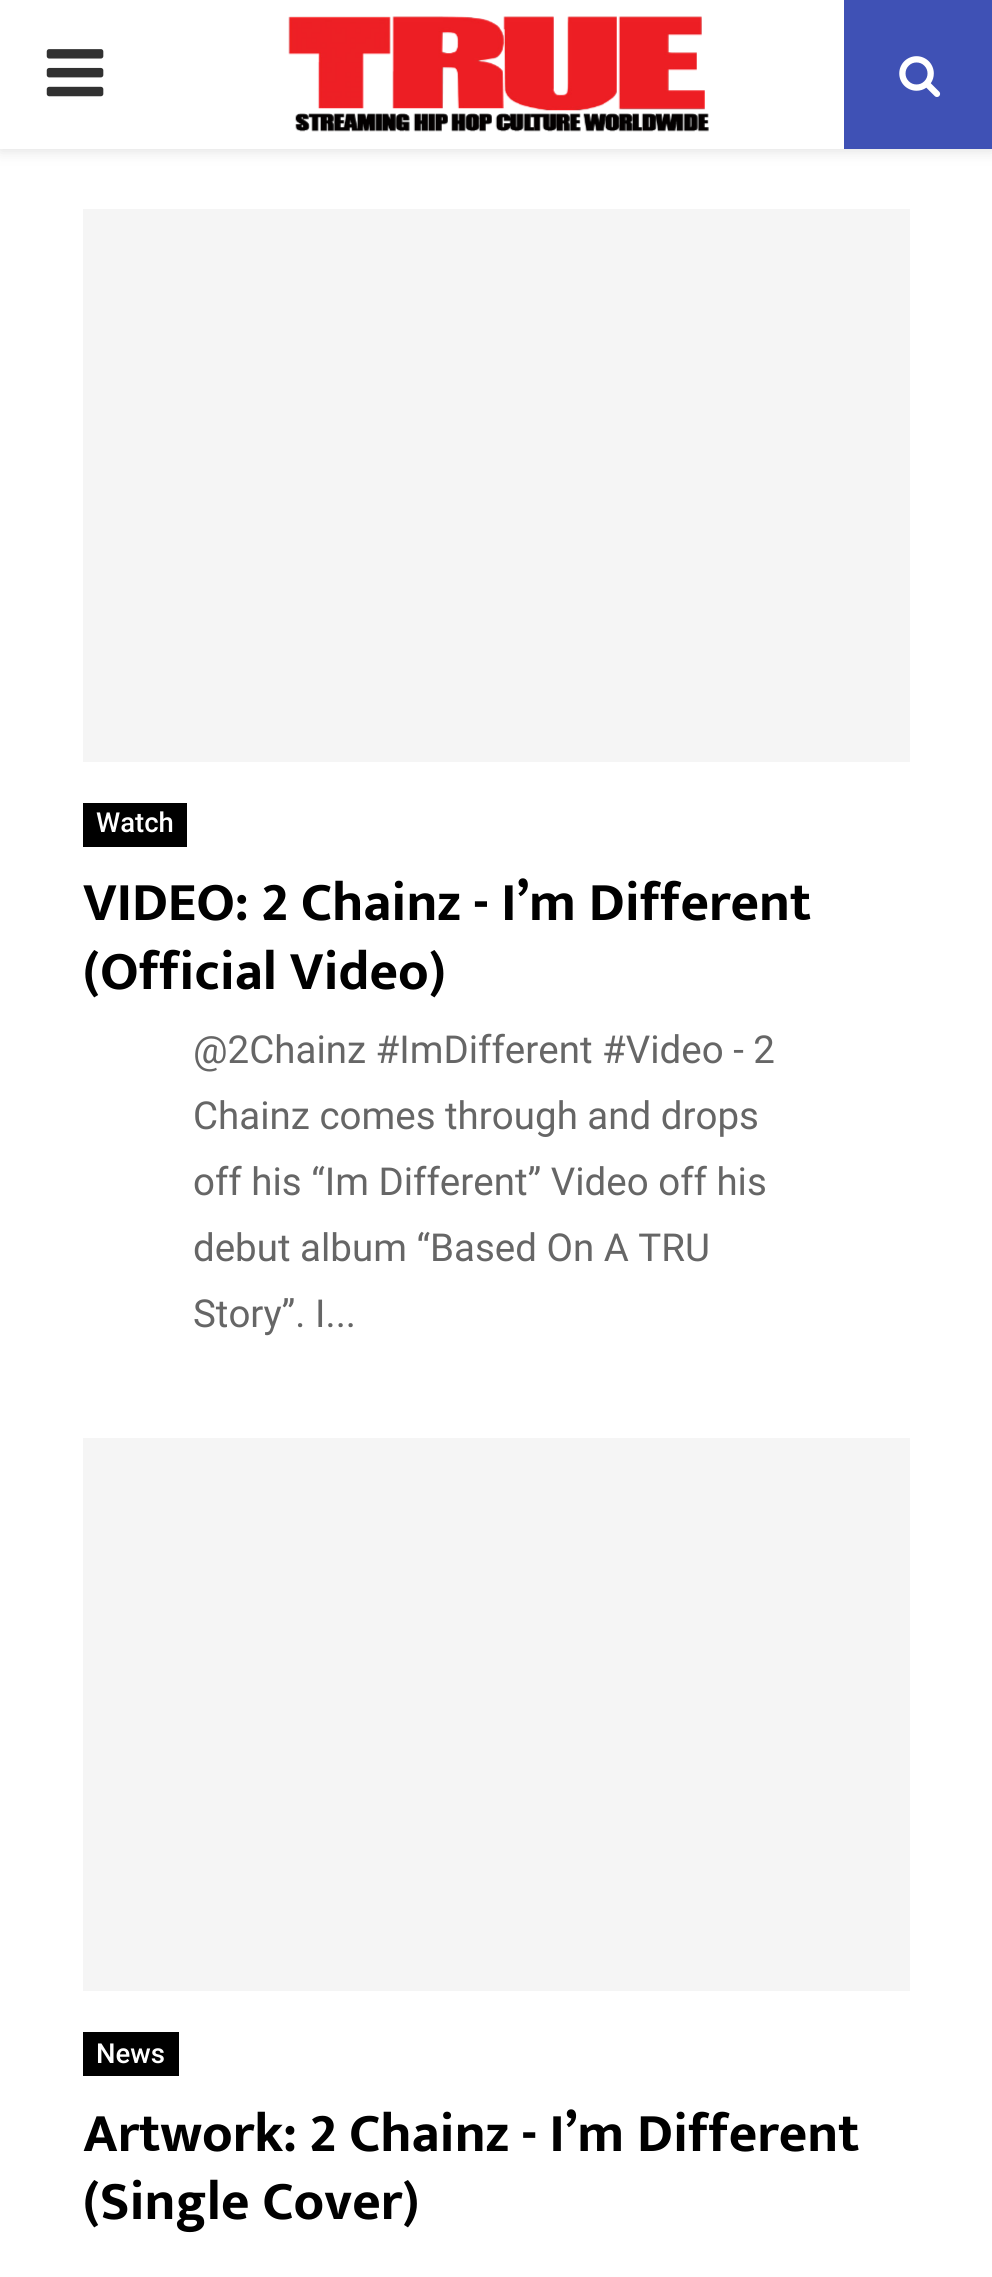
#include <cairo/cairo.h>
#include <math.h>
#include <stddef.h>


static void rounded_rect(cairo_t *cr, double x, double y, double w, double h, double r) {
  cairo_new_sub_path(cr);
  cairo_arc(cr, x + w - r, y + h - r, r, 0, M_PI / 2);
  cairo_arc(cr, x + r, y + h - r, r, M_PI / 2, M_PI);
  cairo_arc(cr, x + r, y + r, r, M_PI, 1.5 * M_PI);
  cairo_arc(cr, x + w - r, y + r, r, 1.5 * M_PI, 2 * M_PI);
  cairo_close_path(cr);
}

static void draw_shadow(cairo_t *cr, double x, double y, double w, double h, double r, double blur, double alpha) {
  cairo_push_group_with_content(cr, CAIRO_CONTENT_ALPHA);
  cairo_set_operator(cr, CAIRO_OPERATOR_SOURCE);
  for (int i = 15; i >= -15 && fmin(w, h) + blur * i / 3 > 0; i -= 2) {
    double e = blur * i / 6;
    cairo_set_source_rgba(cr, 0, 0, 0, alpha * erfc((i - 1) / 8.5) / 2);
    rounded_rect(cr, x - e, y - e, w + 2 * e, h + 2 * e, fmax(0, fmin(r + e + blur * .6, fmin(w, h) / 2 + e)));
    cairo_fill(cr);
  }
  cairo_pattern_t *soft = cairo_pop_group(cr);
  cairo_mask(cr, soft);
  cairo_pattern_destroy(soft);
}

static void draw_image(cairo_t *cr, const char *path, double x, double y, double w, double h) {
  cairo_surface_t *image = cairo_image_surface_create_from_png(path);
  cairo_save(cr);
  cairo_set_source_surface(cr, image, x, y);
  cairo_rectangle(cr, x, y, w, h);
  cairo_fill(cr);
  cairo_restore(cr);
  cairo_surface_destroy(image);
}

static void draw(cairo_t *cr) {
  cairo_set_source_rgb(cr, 1, 1, 1);
  cairo_paint(cr);
  cairo_set_source_rgb(cr, 190 / 255.0, 190 / 255.0, 190 / 255.0);
  draw_shadow(cr, 0, 3, 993, 148, 0, 7, 0.46);
  cairo_set_source_rgb(cr, 1, 1, 1);
  cairo_rectangle(cr, 0, 0, 844, 149);
  cairo_fill(cr);
  draw_image(cr, "images/1.png", 46, 49, 58, 48);
  draw_image(cr, "images/2.png", 288, 16, 421, 116);
  cairo_set_source_rgb(cr, 63 / 255.0, 81 / 255.0, 181 / 255.0);
  cairo_rectangle(cr, 844, 0, 148, 149);
  cairo_fill(cr);
  draw_image(cr, "images/3.png", 899, 56, 42, 41);
  cairo_set_source_rgb(cr, 245 / 255.0, 245 / 255.0, 245 / 255.0);
  cairo_rectangle(cr, 83, 209, 827, 553);
  cairo_fill(cr);
  cairo_set_source_rgb(cr, 0, 0, 0);
  cairo_rectangle(cr, 83, 803, 104, 44);
  cairo_fill(cr);
  cairo_set_source_rgb(cr, 245 / 255.0, 245 / 255.0, 245 / 255.0);
  cairo_rectangle(cr, 83, 1438, 827, 553);
  cairo_fill(cr);
  cairo_set_source_rgb(cr, 0, 0, 0);
  cairo_rectangle(cr, 83, 2032, 96, 44);
  cairo_fill(cr);
  cairo_select_font_face(cr, "Roboto Medium", CAIRO_FONT_SLANT_NORMAL, CAIRO_FONT_WEIGHT_NORMAL);
  cairo_set_font_size(cr, 27.5);
  cairo_set_source_rgb(cr, 1, 1, 1);
  cairo_move_to(cr, 96, 832);
  cairo_show_text(cr, "Watch");
  cairo_select_font_face(cr, "Mukta Vaani", CAIRO_FONT_SLANT_NORMAL, CAIRO_FONT_WEIGHT_BOLD);
  cairo_set_font_size(cr, 55);
  cairo_set_source_rgb(cr, 0, 0, 0);
  cairo_move_to(cr, 83, 920);
  cairo_show_text(cr, "VIDEO: 2 Chainz - I’m Different");
  cairo_move_to(cr, 83, 989);
  cairo_show_text(cr, "(Official Video)");
  cairo_select_font_face(cr, "Roboto", CAIRO_FONT_SLANT_NORMAL, CAIRO_FONT_WEIGHT_NORMAL);
  cairo_set_font_size(cr, 38.5);
  cairo_set_source_rgb(cr, 102 / 255.0, 102 / 255.0, 102 / 255.0);
  cairo_move_to(cr, 193, 1063);
  cairo_show_text(cr, "@2Chainz #ImDifferent #Video - 2");
  cairo_move_to(cr, 193, 1129);
  cairo_show_text(cr, "Chainz comes through and drops");
  cairo_move_to(cr, 193, 1195);
  cairo_show_text(cr, "off his “Im Different” Video off his");
  cairo_move_to(cr, 193, 1261);
  cairo_show_text(cr, "debut album “Based On A TRU");
  cairo_move_to(cr, 193, 1327);
  cairo_show_text(cr, "Story”. I...");
  cairo_select_font_face(cr, "Roboto Medium", CAIRO_FONT_SLANT_NORMAL, CAIRO_FONT_WEIGHT_NORMAL);
  cairo_set_font_size(cr, 27.5);
  cairo_set_source_rgb(cr, 1, 1, 1);
  cairo_move_to(cr, 96, 2063);
  cairo_show_text(cr, "News");
  cairo_select_font_face(cr, "Mukta Vaani", CAIRO_FONT_SLANT_NORMAL, CAIRO_FONT_WEIGHT_BOLD);
  cairo_set_font_size(cr, 55);
  cairo_set_source_rgb(cr, 0, 0, 0);
  cairo_move_to(cr, 83, 2151);
  cairo_show_text(cr, "Artwork: 2 Chainz - I’m Different");
  cairo_move_to(cr, 83, 2219);
  cairo_show_text(cr, "(Single Cover)");
}

int main(void) {
  cairo_surface_t *surface = cairo_image_surface_create(CAIRO_FORMAT_RGB24, 992, 2277);
  cairo_t *cr = cairo_create(surface);
  cairo_font_options_t *options = cairo_font_options_create();
  cairo_font_options_set_hint_metrics(options, CAIRO_HINT_METRICS_OFF);
  cairo_font_options_set_hint_style(options, CAIRO_HINT_STYLE_NONE);
  cairo_set_font_options(cr, options);
  cairo_set_miter_limit(cr, 4);
  draw(cr);
  cairo_surface_write_to_png(surface, "out.png");
  cairo_font_options_destroy(options);
  cairo_destroy(cr);
  cairo_surface_destroy(surface);
  return 0;
}
